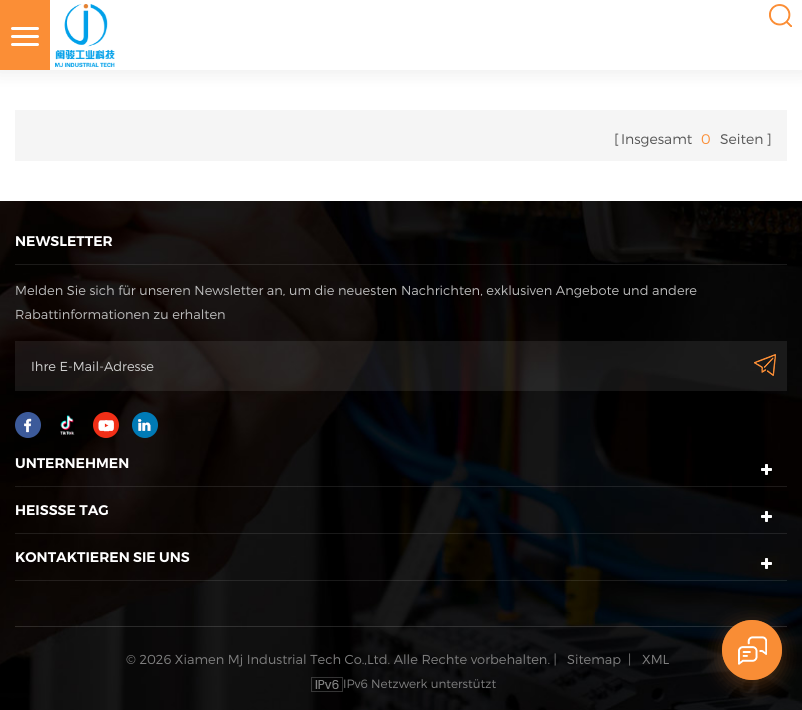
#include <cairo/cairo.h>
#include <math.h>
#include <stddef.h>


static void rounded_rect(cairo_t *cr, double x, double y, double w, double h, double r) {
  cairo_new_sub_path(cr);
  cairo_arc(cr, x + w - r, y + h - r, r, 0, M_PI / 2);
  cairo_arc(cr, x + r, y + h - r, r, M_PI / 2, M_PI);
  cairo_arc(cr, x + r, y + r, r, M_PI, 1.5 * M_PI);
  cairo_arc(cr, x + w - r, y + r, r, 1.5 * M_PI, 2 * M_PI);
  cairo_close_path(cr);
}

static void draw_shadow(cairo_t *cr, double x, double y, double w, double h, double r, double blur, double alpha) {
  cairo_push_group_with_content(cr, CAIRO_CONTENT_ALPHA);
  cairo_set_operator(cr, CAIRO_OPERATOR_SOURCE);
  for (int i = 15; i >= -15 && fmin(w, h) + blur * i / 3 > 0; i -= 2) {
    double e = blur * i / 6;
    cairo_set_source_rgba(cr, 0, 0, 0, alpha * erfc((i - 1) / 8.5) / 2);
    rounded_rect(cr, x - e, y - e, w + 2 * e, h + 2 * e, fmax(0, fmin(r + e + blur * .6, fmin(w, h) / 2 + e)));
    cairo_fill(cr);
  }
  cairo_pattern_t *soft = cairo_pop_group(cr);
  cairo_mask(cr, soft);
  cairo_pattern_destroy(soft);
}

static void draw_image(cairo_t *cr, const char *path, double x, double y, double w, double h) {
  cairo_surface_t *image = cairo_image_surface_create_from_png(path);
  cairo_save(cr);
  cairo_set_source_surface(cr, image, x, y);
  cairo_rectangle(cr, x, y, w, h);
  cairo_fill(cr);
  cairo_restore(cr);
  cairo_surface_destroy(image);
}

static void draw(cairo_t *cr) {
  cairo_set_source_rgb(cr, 1, 1, 1);
  cairo_paint(cr);
  cairo_set_source_rgb(cr, 0, 0, 0);
  draw_shadow(cr, -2, -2, 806, 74, 0, 10, 0.08);
  cairo_set_source_rgb(cr, 1, 1, 1);
  cairo_rectangle(cr, 50, 0, 752, 70);
  cairo_fill(cr);
  cairo_set_source_rgb(cr, 251 / 255.0, 142 / 255.0, 54 / 255.0);
  cairo_rectangle(cr, 0, 0, 50, 70);
  cairo_fill(cr);
  cairo_set_source_rgb(cr, 1, 1, 1);
  rounded_rect(cr, 11, 35, 28, 3, 1.5);
  cairo_fill(cr);
  rounded_rect(cr, 11, 27, 28, 3, 1.5);
  cairo_fill(cr);
  rounded_rect(cr, 11, 43, 28, 3, 1.5);
  cairo_fill(cr);
  draw_image(cr, "images/1.png", 769, 4, 23, 23);
  draw_image(cr, "images/2.png", 55, 4, 60, 63);
  cairo_set_source_rgb(cr, 245 / 255.0, 245 / 255.0, 245 / 255.0);
  cairo_rectangle(cr, 15, 110, 772, 51);
  cairo_fill(cr);
  draw_image(cr, "images/3.png", 0, 201, 802, 509);
  cairo_set_source_rgba(cr, 1, 1, 1, 0.1);
  cairo_rectangle(cr, 15, 264, 772, 1);
  cairo_fill(cr);
  cairo_set_source_rgba(cr, 1, 1, 1, 0.08);
  cairo_rectangle(cr, 15, 341, 772, 50);
  cairo_fill(cr);
  draw_image(cr, "images/4.png", 754, 354, 22, 22);
  draw_image(cr, "images/5.png", 15, 412, 26, 26);
  draw_image(cr, "images/6.png", 60, 415, 15, 20);
  draw_image(cr, "images/7.png", 93, 412, 26, 26);
  draw_image(cr, "images/8.png", 132, 412, 26, 26);
  cairo_set_source_rgba(cr, 1, 1, 1, 0.1);
  cairo_rectangle(cr, 15, 486, 772, 1);
  cairo_fill(cr);
  draw_image(cr, "images/9.png", 761, 464, 11, 11);
  cairo_rectangle(cr, 15, 533, 772, 1);
  cairo_fill(cr);
  draw_image(cr, "images/10.png", 761, 511, 11, 11);
  cairo_rectangle(cr, 15, 580, 772, 1);
  cairo_fill(cr);
  draw_image(cr, "images/11.png", 761, 558, 11, 11);
  cairo_set_source_rgba(cr, 1, 1, 1, 0.14);
  cairo_rectangle(cr, 15, 626, 772, 1);
  cairo_fill(cr);
  draw_image(cr, "images/12.png", 311, 677, 32, 15);
  cairo_set_source_rgb(cr, 251 / 255.0, 142 / 255.0, 54 / 255.0);
  draw_shadow(cr, 722, 625, 60, 60, 30, 10, 0.3);
  cairo_set_source_rgb(cr, 251 / 255.0, 142 / 255.0, 54 / 255.0);
  cairo_arc(cr, 752, 650, 30, 0, 2 * M_PI);
  cairo_fill(cr);
  cairo_set_source_rgba(cr, 251 / 255.0, 142 / 255.0, 54 / 255.0, 0.25);
  cairo_arc(cr, 752, 650, 30, 0, 2 * M_PI);
  cairo_fill(cr);
  cairo_arc(cr, 752, 650, 30, 0, 2 * M_PI);
  cairo_fill(cr);
  cairo_arc(cr, 752, 650, 30, 0, 2 * M_PI);
  cairo_fill(cr);
  draw_image(cr, "images/13.png", 738, 636, 29, 29);
  cairo_select_font_face(cr, "Montserrat Light", CAIRO_FONT_SLANT_NORMAL, CAIRO_FONT_WEIGHT_NORMAL);
  cairo_set_font_size(cr, 14);
  cairo_set_source_rgb(cr, 85 / 255.0, 85 / 255.0, 85 / 255.0);
  cairo_move_to(cr, 614, 144);
  cairo_show_text(cr, "[");
  cairo_move_to(cr, 621, 144);
  cairo_show_text(cr, "Insgesamt");
  cairo_set_source_rgb(cr, 251 / 255.0, 142 / 255.0, 54 / 255.0);
  cairo_move_to(cr, 701, 144);
  cairo_show_text(cr, "0");
  cairo_set_source_rgb(cr, 85 / 255.0, 85 / 255.0, 85 / 255.0);
  cairo_move_to(cr, 720, 144);
  cairo_show_text(cr, "Seiten");
  cairo_move_to(cr, 766, 144);
  cairo_show_text(cr, "]");
  cairo_select_font_face(cr, "Montserrat SemiBold", CAIRO_FONT_SLANT_NORMAL, CAIRO_FONT_WEIGHT_NORMAL);
  cairo_set_source_rgb(cr, 1, 1, 1);
  cairo_move_to(cr, 15, 246);
  cairo_show_text(cr, "NEWSLETTER");
  cairo_select_font_face(cr, "Montserrat Light", CAIRO_FONT_SLANT_NORMAL, CAIRO_FONT_WEIGHT_NORMAL);
  cairo_set_font_size(cr, 13);
  cairo_set_source_rgb(cr, 189 / 255.0, 189 / 255.0, 189 / 255.0);
  cairo_move_to(cr, 15, 295);
  cairo_show_text(cr, "Melden Sie sich für unseren Newsletter an, um die neuesten Nachrichten, exklusiven Angebote und andere");
  cairo_move_to(cr, 15, 319);
  cairo_show_text(cr, "Rabattinformationen zu erhalten");
  cairo_set_source_rgb(cr, 209 / 255.0, 209 / 255.0, 209 / 255.0);
  cairo_move_to(cr, 31, 371);
  cairo_show_text(cr, "Ihre E-Mail-Adresse");
  cairo_select_font_face(cr, "Montserrat SemiBold", CAIRO_FONT_SLANT_NORMAL, CAIRO_FONT_WEIGHT_NORMAL);
  cairo_set_font_size(cr, 14);
  cairo_set_source_rgb(cr, 1, 1, 1);
  cairo_move_to(cr, 15, 468);
  cairo_show_text(cr, "UNTERNEHMEN");
  cairo_move_to(cr, 15, 515);
  cairo_show_text(cr, "HEISSSE TAG");
  cairo_move_to(cr, 15, 562);
  cairo_show_text(cr, "KONTAKTIEREN SIE UNS");
  cairo_select_font_face(cr, "Montserrat Light", CAIRO_FONT_SLANT_NORMAL, CAIRO_FONT_WEIGHT_NORMAL);
  cairo_set_font_size(cr, 13);
  cairo_set_source_rgb(cr, 128 / 255.0, 128 / 255.0, 128 / 255.0);
  cairo_move_to(cr, 126, 664);
  cairo_show_text(cr, "© 2026 Xiamen Mj Industrial Tech Co.,Ltd. Alle Rechte vorbehalten. |");
  cairo_move_to(cr, 567, 664);
  cairo_show_text(cr, "Sitemap");
  cairo_move_to(cr, 628, 664);
  cairo_show_text(cr, "|");
  cairo_move_to(cr, 642, 664);
  cairo_show_text(cr, "XML");
  cairo_set_font_size(cr, 12);
  cairo_move_to(cr, 343, 688);
  cairo_show_text(cr, "IPv6 Netzwerk unterstützt");
}

int main(void) {
  cairo_surface_t *surface = cairo_image_surface_create(CAIRO_FORMAT_RGB24, 802, 710);
  cairo_t *cr = cairo_create(surface);
  cairo_font_options_t *options = cairo_font_options_create();
  cairo_font_options_set_hint_metrics(options, CAIRO_HINT_METRICS_OFF);
  cairo_font_options_set_hint_style(options, CAIRO_HINT_STYLE_NONE);
  cairo_set_font_options(cr, options);
  cairo_set_miter_limit(cr, 4);
  draw(cr);
  cairo_surface_write_to_png(surface, "out.png");
  cairo_font_options_destroy(options);
  cairo_destroy(cr);
  cairo_surface_destroy(surface);
  return 0;
}
